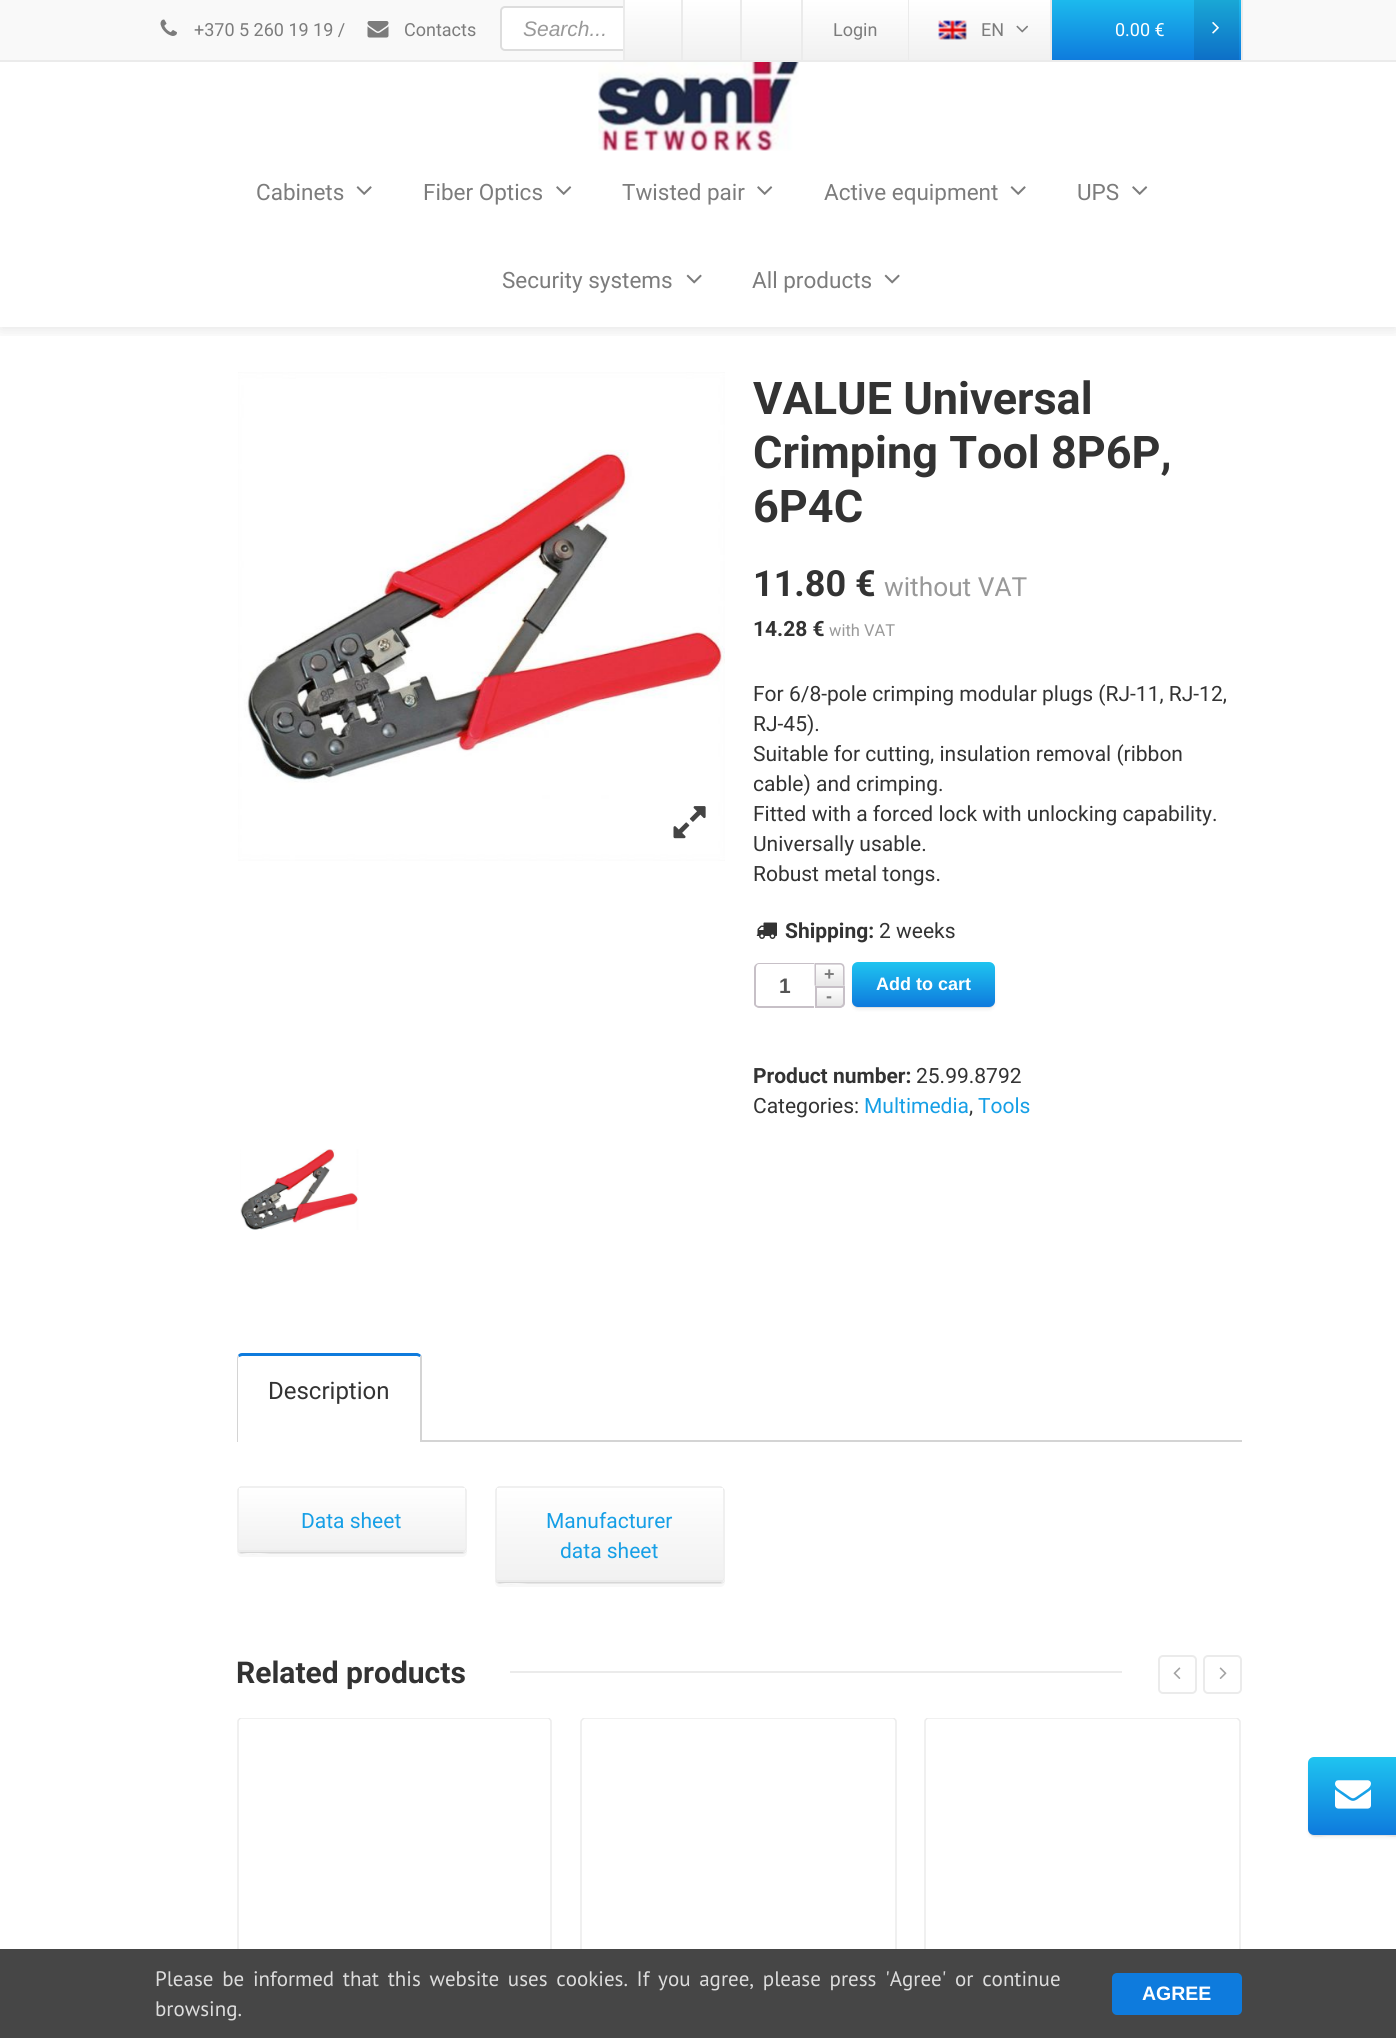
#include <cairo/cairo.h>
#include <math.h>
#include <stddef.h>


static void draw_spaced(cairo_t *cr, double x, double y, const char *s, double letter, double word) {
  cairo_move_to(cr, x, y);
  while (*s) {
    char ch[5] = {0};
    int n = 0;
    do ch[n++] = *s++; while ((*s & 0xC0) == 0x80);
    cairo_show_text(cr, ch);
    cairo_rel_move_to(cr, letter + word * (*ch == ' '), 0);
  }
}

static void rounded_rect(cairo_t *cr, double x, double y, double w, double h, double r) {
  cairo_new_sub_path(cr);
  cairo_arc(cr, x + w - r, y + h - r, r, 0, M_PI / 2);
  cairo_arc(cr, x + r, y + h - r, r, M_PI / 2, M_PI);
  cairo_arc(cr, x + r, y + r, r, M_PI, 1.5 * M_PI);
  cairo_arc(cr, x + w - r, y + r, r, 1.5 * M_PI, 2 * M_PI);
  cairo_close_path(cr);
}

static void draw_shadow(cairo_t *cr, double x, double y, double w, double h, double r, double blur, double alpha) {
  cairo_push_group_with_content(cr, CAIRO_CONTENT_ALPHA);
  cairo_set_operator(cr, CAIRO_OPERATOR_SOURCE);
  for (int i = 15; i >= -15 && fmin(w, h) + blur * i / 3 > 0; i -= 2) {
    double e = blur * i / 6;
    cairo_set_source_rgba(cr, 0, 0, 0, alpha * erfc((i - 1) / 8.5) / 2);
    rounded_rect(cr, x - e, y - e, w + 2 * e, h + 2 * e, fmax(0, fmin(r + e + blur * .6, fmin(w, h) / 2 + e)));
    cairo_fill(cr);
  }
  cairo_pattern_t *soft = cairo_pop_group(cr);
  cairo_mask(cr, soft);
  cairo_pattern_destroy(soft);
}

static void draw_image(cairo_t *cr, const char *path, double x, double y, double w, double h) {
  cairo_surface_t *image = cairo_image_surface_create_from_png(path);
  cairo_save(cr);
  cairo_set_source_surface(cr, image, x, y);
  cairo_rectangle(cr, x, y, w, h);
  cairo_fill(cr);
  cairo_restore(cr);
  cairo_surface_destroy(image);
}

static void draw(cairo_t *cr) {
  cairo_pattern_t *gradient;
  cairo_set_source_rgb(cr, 1, 1, 1);
  cairo_paint(cr);
  cairo_save(cr);
  cairo_rectangle(cr, 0, 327, 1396, 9);
  cairo_clip(cr);
  cairo_set_source_rgb(cr, 0, 0, 0);
  draw_shadow(cr, 0, 3, 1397, 327, 0, 7.5, 0.1);
  cairo_restore(cr);
  cairo_set_source_rgb(cr, 249 / 255.0, 249 / 255.0, 249 / 255.0);
  cairo_rectangle(cr, 0, 0, 1396, 60);
  cairo_fill(cr);
  cairo_set_source_rgb(cr, 235 / 255.0, 235 / 255.0, 235 / 255.0);
  cairo_rectangle(cr, 0, 60, 1396, 2);
  cairo_fill(cr);
  draw_image(cr, "images/1.png", 160, 19, 17, 17);
  draw_image(cr, "images/2.png", 367, 21, 22, 17);
  cairo_set_source_rgb(cr, 1, 1, 1);
  rounded_rect(cr, 501, 7, 523, 43, 4);
  cairo_fill_preserve(cr);
  cairo_set_source_rgb(cr, 221 / 255.0, 221 / 255.0, 221 / 255.0);
  cairo_stroke(cr);
  gradient = cairo_pattern_create_linear(654, 0, 654, 60);
  cairo_pattern_add_color_stop_rgba(gradient, 0, 1, 1, 1, 1);
  cairo_pattern_add_color_stop_rgba(gradient, 1, 241 / 255.0, 241 / 255.0, 241 / 255.0, 1);
  cairo_set_source(cr, gradient);
  cairo_pattern_destroy(gradient);
  cairo_rectangle(cr, 625, 0, 56, 60);
  cairo_fill(cr);
  cairo_set_source_rgb(cr, 235 / 255.0, 235 / 255.0, 235 / 255.0);
  cairo_rectangle(cr, 623, 0, 2, 60);
  cairo_fill(cr);
  gradient = cairo_pattern_create_linear(713, 0, 713, 60);
  cairo_pattern_add_color_stop_rgba(gradient, 0, 1, 1, 1, 1);
  cairo_pattern_add_color_stop_rgba(gradient, 1, 241 / 255.0, 241 / 255.0, 241 / 255.0, 1);
  cairo_set_source(cr, gradient);
  cairo_pattern_destroy(gradient);
  cairo_rectangle(cr, 683, 0, 57, 60);
  cairo_fill(cr);
  cairo_set_source_rgb(cr, 235 / 255.0, 235 / 255.0, 235 / 255.0);
  cairo_rectangle(cr, 681, 0, 2, 60);
  cairo_fill(cr);
  gradient = cairo_pattern_create_linear(771, 0, 771, 60);
  cairo_pattern_add_color_stop_rgba(gradient, 0, 1, 1, 1, 1);
  cairo_pattern_add_color_stop_rgba(gradient, 1, 241 / 255.0, 241 / 255.0, 241 / 255.0, 1);
  cairo_set_source(cr, gradient);
  cairo_pattern_destroy(gradient);
  cairo_rectangle(cr, 742, 0, 59, 60);
  cairo_fill(cr);
  cairo_set_source_rgb(cr, 235 / 255.0, 235 / 255.0, 235 / 255.0);
  cairo_rectangle(cr, 801, 0, 2, 60);
  cairo_fill(cr);
  cairo_rectangle(cr, 740, 0, 2, 60);
  cairo_fill(cr);
  cairo_rectangle(cr, 908, 0, 1, 60);
  cairo_fill(cr);
  gradient = cairo_pattern_create_linear(855, 0, 855, 60);
  cairo_pattern_add_color_stop_rgba(gradient, 0, 1, 1, 1, 1);
  cairo_pattern_add_color_stop_rgba(gradient, 1, 241 / 255.0, 241 / 255.0, 241 / 255.0, 1);
  cairo_set_source(cr, gradient);
  cairo_pattern_destroy(gradient);
  cairo_rectangle(cr, 803, 0, 105, 60);
  cairo_fill(cr);
  cairo_set_source_rgb(cr, 235 / 255.0, 235 / 255.0, 235 / 255.0);
  cairo_rectangle(cr, 1050, 0, 2, 60);
  cairo_fill(cr);
  gradient = cairo_pattern_create_linear(980, 0, 980, 60);
  cairo_pattern_add_color_stop_rgba(gradient, 0, 1, 1, 1, 1);
  cairo_pattern_add_color_stop_rgba(gradient, 1, 241 / 255.0, 241 / 255.0, 241 / 255.0, 1);
  cairo_set_source(cr, gradient);
  cairo_pattern_destroy(gradient);
  cairo_rectangle(cr, 909, 0, 141, 60);
  cairo_fill(cr);
  draw_image(cr, "images/3.png", 938, 20, 29, 20);
  draw_image(cr, "images/4.png", 1016, 25, 12, 8);
  cairo_set_source_rgb(cr, 235 / 255.0, 235 / 255.0, 235 / 255.0);
  cairo_rectangle(cr, 1241, 0, 2, 60);
  cairo_fill(cr);
  gradient = cairo_pattern_create_linear(1146, 0, 1146, 60);
  cairo_pattern_add_color_stop_rgba(gradient, 0, 28 / 255.0, 186 / 255.0, 237 / 255.0, 1);
  cairo_pattern_add_color_stop_rgba(gradient, 1, 14 / 255.0, 123 / 255.0, 221 / 255.0, 1);
  cairo_set_source(cr, gradient);
  cairo_pattern_destroy(gradient);
  cairo_rectangle(cr, 1052, 0, 189, 60);
  cairo_fill(cr);
  gradient = cairo_pattern_create_linear(1146, 0, 1146, 60);
  cairo_pattern_add_color_stop_rgba(gradient, 0, 25 / 255.0, 167 / 255.0, 213 / 255.0, 1);
  cairo_pattern_add_color_stop_rgba(gradient, 1, 13 / 255.0, 111 / 255.0, 199 / 255.0, 1);
  cairo_set_source(cr, gradient);
  cairo_pattern_destroy(gradient);
  cairo_rectangle(cr, 1194, 0, 45, 60);
  cairo_fill(cr);
  draw_image(cr, "images/5.png", 1212, 22, 7, 12);
  draw_image(cr, "images/6.png", 598, 62, 201, 89);
  draw_image(cr, "images/7.png", 356, 186, 16, 9);
  draw_image(cr, "images/8.png", 556, 186, 16, 9);
  draw_image(cr, "images/8.png", 757, 186, 16, 9);
  draw_image(cr, "images/7.png", 1010, 186, 16, 9);
  draw_image(cr, "images/8.png", 1132, 186, 16, 9);
  draw_image(cr, "images/9.png", 686, 274, 16, 10);
  draw_image(cr, "images/9.png", 884, 274, 16, 10);
  draw_image(cr, "images/10.png", 238, 372, 487, 489);
  draw_image(cr, "images/11.png", 673, 806, 33, 33);
  draw_image(cr, "images/12.png", 240, 1149, 119, 81);
  draw_image(cr, "images/13.png", 756, 922, 21, 17);
  cairo_set_source_rgb(cr, 245 / 255.0, 245 / 255.0, 245 / 255.0);
  cairo_new_path(cr);
  cairo_move_to(cr, 815, 963);
  cairo_line_to(cr, 840, 963);
  cairo_curve_to(cr, 843, 963, 845, 965, 845, 968);
  cairo_line_to(cr, 845, 986);
  cairo_line_to(cr, 815, 986);
  cairo_close_path(cr);
  cairo_fill(cr);
  gradient = cairo_pattern_create_linear(830, 965, 830, 986);
  cairo_pattern_add_color_stop_rgba(gradient, 0, 1, 1, 1, 1);
  cairo_pattern_add_color_stop_rgba(gradient, 1, 230 / 255.0, 230 / 255.0, 230 / 255.0, 1);
  cairo_set_source(cr, gradient);
  cairo_pattern_destroy(gradient);
  cairo_rectangle(cr, 815, 965, 30, 21);
  cairo_fill(cr);
  cairo_set_source_rgb(cr, 199 / 255.0, 192 / 255.0, 199 / 255.0);
  cairo_set_fill_rule(cr, CAIRO_FILL_RULE_EVEN_ODD);
  cairo_new_path(cr);
  cairo_move_to(cr, 814.5, 963);
  cairo_line_to(cr, 840, 963);
  cairo_curve_to(cr, 842.5, 963, 844.5, 965, 844.5, 967.5);
  cairo_line_to(cr, 844.5, 985.5);
  cairo_line_to(cr, 814.5, 985.5);
  cairo_close_path(cr);
  cairo_move_to(cr, 816, 964.5);
  cairo_line_to(cr, 840, 964.5);
  cairo_curve_to(cr, 841.5, 964.5, 843, 966, 843, 967.5);
  cairo_line_to(cr, 843, 985.5);
  cairo_line_to(cr, 816, 985.5);
  cairo_close_path(cr);
  cairo_fill(cr);
  cairo_new_path(cr);
  cairo_move_to(cr, 759, 963);
  cairo_line_to(cr, 814, 963);
  cairo_line_to(cr, 814, 1008);
  cairo_line_to(cr, 759, 1008);
  cairo_curve_to(cr, 757, 1008, 754, 1006, 754, 1004);
  cairo_line_to(cr, 754, 968);
  cairo_curve_to(cr, 754, 965, 757, 963, 759, 963);
  cairo_close_path(cr);
  cairo_move_to(cr, 759, 964);
  cairo_line_to(cr, 814, 964);
  cairo_line_to(cr, 814, 1006);
  cairo_line_to(cr, 759, 1006);
  cairo_curve_to(cr, 757, 1006, 756, 1005, 756, 1004);
  cairo_line_to(cr, 756, 968);
  cairo_curve_to(cr, 756, 966, 757, 964, 759, 964);
  cairo_close_path(cr);
  cairo_fill(cr);
  cairo_save(cr);
  cairo_set_fill_rule(cr, CAIRO_FILL_RULE_WINDING);
  cairo_new_path(cr);
  cairo_move_to(cr, 815, 986);
  cairo_line_to(cr, 845, 986);
  cairo_line_to(cr, 845, 1003);
  cairo_curve_to(cr, 845, 1006, 843, 1008, 840, 1008);
  cairo_line_to(cr, 815, 1008);
  cairo_close_path(cr);
  cairo_clip(cr);
  gradient = cairo_pattern_create_linear(830, 987, 830, 1007);
  cairo_pattern_add_color_stop_rgba(gradient, 0, 1, 1, 1, 1);
  cairo_pattern_add_color_stop_rgba(gradient, 1, 230 / 255.0, 230 / 255.0, 230 / 255.0, 1);
  cairo_set_source(cr, gradient);
  cairo_pattern_destroy(gradient);
  cairo_rectangle(cr, 817, 988, 28, 19);
  cairo_fill(cr);
  cairo_restore(cr);
  cairo_new_path(cr);
  cairo_move_to(cr, 816, 987);
  cairo_line_to(cr, 844, 987);
  cairo_line_to(cr, 844, 1003);
  cairo_curve_to(cr, 844, 1005, 842, 1007, 840, 1007);
  cairo_line_to(cr, 816, 1007);
  cairo_close_path(cr);
  cairo_stroke(cr);
  cairo_set_source_rgb(cr, 235 / 255.0, 235 / 255.0, 235 / 255.0);
  cairo_set_fill_rule(cr, CAIRO_FILL_RULE_WINDING);
  cairo_new_path(cr);
  cairo_move_to(cr, 852, 1000);
  cairo_line_to(cr, 852, 1002);
  cairo_curve_to(cr, 852, 1005, 855, 1008, 858, 1008);
  cairo_line_to(cr, 989, 1008);
  cairo_curve_to(cr, 992, 1008, 995, 1005, 995, 1002);
  cairo_line_to(cr, 995, 969);
  cairo_line_to(cr, 994, 966);
  cairo_line_to(cr, 994, 1002);
  cairo_curve_to(cr, 993, 1010, 975, 1006, 967, 1006);
  cairo_line_to(cr, 880, 1006);
  cairo_curve_to(cr, 869, 1006, 852, 1010, 852, 1000);
  cairo_close_path(cr);
  cairo_fill(cr);
  cairo_set_source_rgb(cr, 0, 0, 0);
  draw_shadow(cr, 852, 965, 143, 45, 6, 1.5, 0.05);
  gradient = cairo_pattern_create_linear(923, 962, 923, 1007);
  cairo_pattern_add_color_stop_rgba(gradient, 0, 31 / 255.0, 196 / 255.0, 240 / 255.0, 1);
  cairo_pattern_add_color_stop_rgba(gradient, 1, 14 / 255.0, 122 / 255.0, 221 / 255.0, 1);
  cairo_set_source(cr, gradient);
  cairo_pattern_destroy(gradient);
  rounded_rect(cr, 852, 962, 143, 45, 6);
  cairo_fill(cr);
  cairo_set_source_rgb(cr, 14 / 255.0, 123 / 255.0, 221 / 255.0);
  cairo_new_path(cr);
  cairo_move_to(cr, 242, 1353);
  cairo_curve_to(cr, 240, 1353, 239, 1354, 238, 1355);
  cairo_line_to(cr, 239, 1357);
  cairo_line_to(cr, 242, 1356);
  cairo_line_to(cr, 417, 1356);
  cairo_line_to(cr, 420, 1357);
  cairo_line_to(cr, 421, 1355);
  cairo_curve_to(cr, 420, 1354, 418, 1353, 417, 1353);
  cairo_close_path(cr);
  cairo_fill(cr);
  cairo_save(cr);
  cairo_rectangle(cr, 237, 1353, 1005, 89);
  cairo_clip(cr);
  cairo_set_source_rgb(cr, 212 / 255.0, 212 / 255.0, 212 / 255.0);
  cairo_new_path(cr);
  cairo_move_to(cr, 422, 1548);
  cairo_curve_to(cr, 421, 1550, 418, 1551, 417, 1551);
  cairo_curve_to(cr, 419, 1551, 420, 1549, 420, 1546);
  cairo_line_to(cr, 420, 1358);
  cairo_line_to(cr, 420, 1357);
  cairo_line_to(cr, 421, 1355);
  cairo_line_to(cr, 422, 1356);
  cairo_close_path(cr);
  cairo_fill(cr);
  cairo_new_path(cr);
  cairo_move_to(cr, 237, 1358);
  cairo_line_to(cr, 237, 1546);
  cairo_curve_to(cr, 237, 1549, 239, 1551, 242, 1551);
  cairo_curve_to(cr, 239, 1551, 238, 1548, 238, 1546);
  cairo_line_to(cr, 238, 1358);
  cairo_line_to(cr, 239, 1357);
  cairo_line_to(cr, 238, 1355);
  cairo_close_path(cr);
  cairo_fill(cr);
  cairo_restore(cr);
  cairo_set_source_rgb(cr, 212 / 255.0, 212 / 255.0, 212 / 255.0);
  cairo_rectangle(cr, 422, 1440, 820, 2);
  cairo_fill(cr);
  cairo_set_source_rgb(cr, 237 / 255.0, 237 / 255.0, 237 / 255.0);
  cairo_new_path(cr);
  cairo_move_to(cr, 237, 1548);
  cairo_line_to(cr, 237, 1549);
  cairo_curve_to(cr, 237, 1552, 239, 1554, 242, 1554);
  cairo_line_to(cr, 462, 1554);
  cairo_curve_to(cr, 465, 1554, 467, 1552, 467, 1549);
  cairo_line_to(cr, 467, 1493);
  cairo_line_to(cr, 466, 1491);
  cairo_line_to(cr, 466, 1538);
  cairo_curve_to(cr, 466, 1542, 469, 1552, 462, 1552);
  cairo_line_to(cr, 278, 1552);
  cairo_curve_to(cr, 276, 1552, 237, 1559, 237, 1548);
  cairo_close_path(cr);
  cairo_fill(cr);
  cairo_set_source_rgba(cr, 0, 0, 0, 0.03);
  cairo_new_path(cr);
  cairo_move_to(cr, 237, 1548);
  cairo_line_to(cr, 237, 1552);
  cairo_curve_to(cr, 237, 1555, 239, 1557, 242, 1557);
  cairo_line_to(cr, 462, 1557);
  cairo_curve_to(cr, 465, 1557, 467, 1555, 467, 1552);
  cairo_line_to(cr, 467, 1496);
  cairo_line_to(cr, 466, 1494);
  cairo_line_to(cr, 466, 1548);
  cairo_curve_to(cr, 466, 1550, 464, 1552, 462, 1552);
  cairo_line_to(cr, 242, 1552);
  cairo_curve_to(cr, 239, 1552, 237, 1550, 237, 1548);
  cairo_close_path(cr);
  cairo_fill(cr);
  cairo_set_source_rgb(cr, 1, 1, 1);
  rounded_rect(cr, 237, 1487, 230, 66, 5);
  cairo_fill(cr);
  cairo_new_path(cr);
  cairo_move_to(cr, 464.5, 1550.5);
  cairo_curve_to(cr, 464, 1551.5, 463, 1552, 462, 1552);
  cairo_line_to(cr, 241.5, 1552);
  cairo_curve_to(cr, 240.5, 1552, 239.5, 1551.5, 239, 1550.5);
  cairo_set_source_rgba(cr, 0, 0, 0, 0.22);
  cairo_set_line_width(cr, 1.5);
  cairo_stroke(cr);
  cairo_new_path(cr);
  cairo_move_to(cr, 239, 1550.5);
  cairo_curve_to(cr, 238, 1550, 238, 1549, 238, 1548);
  cairo_line_to(cr, 238, 1491);
  cairo_curve_to(cr, 238, 1490, 238, 1489, 239, 1488.5);
  cairo_curve_to(cr, 239.5, 1487.5, 240.5, 1487, 241.5, 1487);
  cairo_line_to(cr, 462, 1487);
  cairo_curve_to(cr, 463, 1487, 464, 1487.5, 464.5, 1488.5);
  cairo_curve_to(cr, 465.5, 1489, 466, 1490, 466, 1491);
  cairo_line_to(cr, 466, 1548);
  cairo_curve_to(cr, 466, 1549, 465.5, 1550, 464.5, 1550.5);
  cairo_set_source_rgb(cr, 235 / 255.0, 235 / 255.0, 235 / 255.0);
  cairo_stroke(cr);
  gradient = cairo_pattern_create_linear(352, 1488, 352, 1550);
  cairo_pattern_add_color_stop_rgba(gradient, 0, 1, 1, 1, 1);
  cairo_pattern_add_color_stop_rgba(gradient, 1, 241 / 255.0, 241 / 255.0, 241 / 255.0, 1);
  cairo_set_source(cr, gradient);
  cairo_pattern_destroy(gradient);
  cairo_rectangle(cr, 239, 1488, 226, 62);
  cairo_fill(cr);
  cairo_set_source_rgb(cr, 235 / 255.0, 235 / 255.0, 235 / 255.0);
  cairo_rectangle(cr, 239, 1550, 226, 2);
  cairo_fill(cr);
  cairo_set_source_rgb(cr, 237 / 255.0, 237 / 255.0, 237 / 255.0);
  cairo_new_path(cr);
  cairo_move_to(cr, 495, 1578);
  cairo_line_to(cr, 495, 1579);
  cairo_curve_to(cr, 495, 1582, 497, 1584, 500, 1584);
  cairo_line_to(cr, 720, 1584);
  cairo_curve_to(cr, 723, 1584, 725, 1582, 725, 1579);
  cairo_line_to(cr, 725, 1493);
  cairo_line_to(cr, 724, 1491);
  cairo_line_to(cr, 724, 1564);
  cairo_curve_to(cr, 724, 1565, 728, 1582, 720, 1582);
  cairo_line_to(cr, 536, 1582);
  cairo_curve_to(cr, 534, 1582, 495, 1589, 495, 1578);
  cairo_close_path(cr);
  cairo_fill(cr);
  cairo_set_source_rgba(cr, 0, 0, 0, 0.03);
  cairo_new_path(cr);
  cairo_move_to(cr, 495, 1578);
  cairo_line_to(cr, 495, 1582);
  cairo_curve_to(cr, 495, 1585, 497, 1587, 500, 1587);
  cairo_line_to(cr, 720, 1587);
  cairo_curve_to(cr, 723, 1587, 725, 1585, 725, 1582);
  cairo_line_to(cr, 725, 1496);
  cairo_line_to(cr, 724, 1494);
  cairo_line_to(cr, 724, 1578);
  cairo_curve_to(cr, 724, 1580, 722, 1582, 720, 1582);
  cairo_line_to(cr, 500, 1582);
  cairo_curve_to(cr, 497, 1582, 495, 1580, 495, 1578);
  cairo_close_path(cr);
  cairo_fill(cr);
  cairo_set_source_rgb(cr, 1, 1, 1);
  rounded_rect(cr, 495, 1487, 230, 96, 5);
  cairo_fill(cr);
  cairo_new_path(cr);
  cairo_move_to(cr, 722.5, 1580.5);
  cairo_curve_to(cr, 722, 1581.5, 721, 1582, 720, 1582);
  cairo_line_to(cr, 499.5, 1582);
  cairo_curve_to(cr, 498.5, 1582, 497.5, 1581.5, 497, 1580.5);
  cairo_set_source_rgba(cr, 0, 0, 0, 0.22);
  cairo_stroke(cr);
  cairo_new_path(cr);
  cairo_move_to(cr, 497, 1580.5);
  cairo_curve_to(cr, 496, 1580, 496, 1579, 496, 1578);
  cairo_line_to(cr, 496, 1491);
  cairo_curve_to(cr, 496, 1490, 496, 1489, 497, 1488.5);
  cairo_curve_to(cr, 497.5, 1487.5, 498.5, 1487, 499.5, 1487);
  cairo_line_to(cr, 720, 1487);
  cairo_curve_to(cr, 721, 1487, 722, 1487.5, 722.5, 1488.5);
  cairo_curve_to(cr, 723.5, 1489, 724, 1490, 724, 1491);
  cairo_line_to(cr, 724, 1578);
  cairo_curve_to(cr, 724, 1579, 723.5, 1580, 722.5, 1580.5);
  cairo_set_source_rgb(cr, 235 / 255.0, 235 / 255.0, 235 / 255.0);
  cairo_stroke(cr);
  gradient = cairo_pattern_create_linear(610, 1488, 610, 1580);
  cairo_pattern_add_color_stop_rgba(gradient, 0, 1, 1, 1, 1);
  cairo_pattern_add_color_stop_rgba(gradient, 1, 241 / 255.0, 241 / 255.0, 241 / 255.0, 1);
  cairo_set_source(cr, gradient);
  cairo_pattern_destroy(gradient);
  cairo_rectangle(cr, 497, 1488, 226, 92);
  cairo_fill(cr);
  cairo_set_source_rgb(cr, 235 / 255.0, 235 / 255.0, 235 / 255.0);
  cairo_rectangle(cr, 497, 1580, 226, 2);
  cairo_fill(cr);
  cairo_rectangle(cr, 510, 1671, 612, 2);
  cairo_fill(cr);
  rounded_rect(cr, 1159, 1656, 37, 37, 4);
  cairo_set_line_width(cr, 2);
  cairo_stroke(cr);
  draw_image(cr, "images/14.png", 1173, 1667, 8, 12);
  rounded_rect(cr, 1204, 1656, 37, 37, 4);
  cairo_stroke(cr);
  draw_image(cr, "images/15.png", 1219, 1667, 8, 12);
  cairo_save(cr);
  cairo_rectangle(cr, 237, 1718, 1005, 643);
  cairo_clip(cr);
  cairo_new_path(cr);
  cairo_move_to(cr, 239, 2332);
  cairo_curve_to(cr, 238, 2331.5, 238, 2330.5, 238, 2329.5);
  cairo_line_to(cr, 238, 1722);
  cairo_curve_to(cr, 238, 1721, 238, 1720, 239, 1719.5);
  cairo_curve_to(cr, 239.5, 1718.5, 240.5, 1718, 241.5, 1718);
  cairo_line_to(cr, 547.5, 1718);
  cairo_curve_to(cr, 548.5, 1718, 549.5, 1718.5, 550, 1719.5);
  cairo_curve_to(cr, 551, 1720, 551, 1721, 551, 1722);
  cairo_line_to(cr, 551, 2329.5);
  cairo_curve_to(cr, 551, 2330.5, 551, 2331.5, 550, 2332);
  cairo_set_line_width(cr, 1.5);
  cairo_stroke(cr);
  cairo_new_path(cr);
  cairo_move_to(cr, 582.5, 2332);
  cairo_curve_to(cr, 581.5, 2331.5, 581, 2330.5, 581, 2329.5);
  cairo_line_to(cr, 581, 1722);
  cairo_curve_to(cr, 581, 1721, 581.5, 1720, 582.5, 1719.5);
  cairo_curve_to(cr, 583, 1718.5, 584, 1718, 585, 1718);
  cairo_line_to(cr, 892.5, 1718);
  cairo_curve_to(cr, 893.5, 1718, 894.5, 1718.5, 895, 1719.5);
  cairo_curve_to(cr, 896, 1720, 896, 1721, 896, 1722);
  cairo_line_to(cr, 896, 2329.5);
  cairo_curve_to(cr, 896, 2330.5, 896, 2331.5, 895, 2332);
  cairo_stroke(cr);
  cairo_new_path(cr);
  cairo_move_to(cr, 926, 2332);
  cairo_curve_to(cr, 925, 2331.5, 925, 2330.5, 925, 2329.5);
  cairo_line_to(cr, 925, 1722);
  cairo_curve_to(cr, 925, 1721, 925, 1720, 926, 1719.5);
  cairo_curve_to(cr, 926.5, 1718.5, 927.5, 1718, 928.5, 1718);
  cairo_line_to(cr, 1236, 1718);
  cairo_curve_to(cr, 1237, 1718, 1238, 1718.5, 1238.5, 1719.5);
  cairo_curve_to(cr, 1239.5, 1720, 1240, 1721, 1240, 1722);
  cairo_line_to(cr, 1240, 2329.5);
  cairo_curve_to(cr, 1240, 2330.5, 1239.5, 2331.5, 1238.5, 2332);
  cairo_stroke(cr);
  cairo_restore(cr);
  cairo_new_path(cr);
  cairo_move_to(cr, 1308, 1828);
  cairo_curve_to(cr, 1308, 1840, 1320, 1836, 1328, 1836);
  cairo_line_to(cr, 1384, 1836);
  cairo_curve_to(cr, 1392, 1836, 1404, 1840, 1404, 1828);
  cairo_curve_to(cr, 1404, 1832, 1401, 1834, 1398, 1834);
  cairo_line_to(cr, 1314, 1834);
  cairo_curve_to(cr, 1311, 1834, 1308, 1832, 1308, 1828);
  cairo_close_path(cr);
  cairo_fill(cr);
  cairo_set_source_rgb(cr, 0, 0, 0);
  draw_shadow(cr, 1308, 1760, 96, 78, 6, 1.5, 0.05);
  gradient = cairo_pattern_create_linear(1356, 1757, 1356, 1835);
  cairo_pattern_add_color_stop_rgba(gradient, 0, 31 / 255.0, 196 / 255.0, 240 / 255.0, 1);
  cairo_pattern_add_color_stop_rgba(gradient, 1, 14 / 255.0, 122 / 255.0, 221 / 255.0, 1);
  cairo_set_source(cr, gradient);
  cairo_pattern_destroy(gradient);
  rounded_rect(cr, 1308, 1757, 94, 78, 6);
  cairo_fill(cr);
  draw_image(cr, "images/16.png", 1335, 1780, 36, 29);
  cairo_set_source_rgb(cr, 70 / 255.0, 70 / 255.0, 70 / 255.0);
  cairo_rectangle(cr, 0, 1949, 1396, 89);
  cairo_fill(cr);
  cairo_set_source_rgb(cr, 14 / 255.0, 123 / 255.0, 221 / 255.0);
  rounded_rect(cr, 1112, 1973, 130, 42, 5);
  cairo_fill(cr);
  cairo_select_font_face(cr, "Roboto", CAIRO_FONT_SLANT_NORMAL, CAIRO_FONT_WEIGHT_NORMAL);
  cairo_set_font_size(cr, 18);
  cairo_set_source_rgb(cr, 124 / 255.0, 124 / 255.0, 124 / 255.0);
  cairo_move_to(cr, 194, 36);
  cairo_show_text(cr, "+370 5 260 19 19 /");
  cairo_move_to(cr, 404, 36);
  cairo_show_text(cr, "Contacts");
  cairo_select_font_face(cr, "Liberation Sans", CAIRO_FONT_SLANT_ITALIC, CAIRO_FONT_WEIGHT_NORMAL);
  cairo_set_font_size(cr, 21);
  cairo_set_source_rgb(cr, 153 / 255.0, 153 / 255.0, 153 / 255.0);
  cairo_move_to(cr, 523, 36);
  cairo_show_text(cr, "Search...");
  cairo_select_font_face(cr, "Roboto", CAIRO_FONT_SLANT_NORMAL, CAIRO_FONT_WEIGHT_NORMAL);
  cairo_set_font_size(cr, 18);
  cairo_set_source_rgb(cr, 124 / 255.0, 124 / 255.0, 124 / 255.0);
  cairo_move_to(cr, 833, 36);
  cairo_show_text(cr, "Login");
  cairo_move_to(cr, 981, 36);
  cairo_show_text(cr, "EN");
  cairo_set_source_rgb(cr, 1, 1, 1);
  cairo_move_to(cr, 1115, 36);
  cairo_show_text(cr, "0.00 €");
  cairo_set_font_size(cr, 22.5);
  cairo_set_source_rgb(cr, 124 / 255.0, 124 / 255.0, 124 / 255.0);
  cairo_move_to(cr, 256, 200);
  cairo_show_text(cr, "Cabinets");
  cairo_move_to(cr, 423, 200);
  cairo_show_text(cr, "Fiber Optics");
  cairo_move_to(cr, 622, 200);
  cairo_show_text(cr, "Twisted pair");
  cairo_move_to(cr, 824, 200);
  cairo_show_text(cr, "Active equipment");
  cairo_move_to(cr, 1077, 200);
  cairo_show_text(cr, "UPS");
  cairo_move_to(cr, 502, 288);
  cairo_show_text(cr, "Security systems");
  cairo_move_to(cr, 752, 288);
  cairo_show_text(cr, "All products");
  cairo_select_font_face(cr, "Roboto", CAIRO_FONT_SLANT_NORMAL, CAIRO_FONT_WEIGHT_BOLD);
  cairo_set_font_size(cr, 45);
  cairo_set_source_rgb(cr, 51 / 255.0, 51 / 255.0, 51 / 255.0);
  cairo_move_to(cr, 753, 414);
  cairo_show_text(cr, "VALUE Universal");
  cairo_move_to(cr, 753, 468);
  cairo_show_text(cr, "Crimping Tool 8P6P,");
  cairo_move_to(cr, 753, 522);
  cairo_show_text(cr, "6P4C");
  cairo_set_font_size(cr, 36);
  cairo_move_to(cr, 753, 596);
  cairo_show_text(cr, "11.80 €");
  cairo_select_font_face(cr, "Roboto", CAIRO_FONT_SLANT_NORMAL, CAIRO_FONT_WEIGHT_NORMAL);
  cairo_set_font_size(cr, 26.25);
  cairo_set_source_rgb(cr, 153 / 255.0, 153 / 255.0, 153 / 255.0);
  cairo_move_to(cr, 884, 596);
  cairo_show_text(cr, "without VAT");
  cairo_select_font_face(cr, "Roboto", CAIRO_FONT_SLANT_NORMAL, CAIRO_FONT_WEIGHT_BOLD);
  cairo_set_font_size(cr, 21);
  cairo_set_source_rgb(cr, 51 / 255.0, 51 / 255.0, 51 / 255.0);
  cairo_move_to(cr, 753, 636);
  cairo_show_text(cr, "14.28 €");
  cairo_select_font_face(cr, "Roboto", CAIRO_FONT_SLANT_NORMAL, CAIRO_FONT_WEIGHT_NORMAL);
  cairo_set_font_size(cr, 16.5);
  cairo_set_source_rgb(cr, 153 / 255.0, 153 / 255.0, 153 / 255.0);
  cairo_move_to(cr, 829, 636);
  cairo_show_text(cr, "with VAT");
  cairo_set_font_size(cr, 21);
  cairo_set_source_rgb(cr, 51 / 255.0, 51 / 255.0, 51 / 255.0);
  cairo_move_to(cr, 753, 701);
  cairo_show_text(cr, "For 6/8-pole crimping modular plugs (RJ-11, RJ-12,");
  cairo_move_to(cr, 753, 731);
  cairo_show_text(cr, "RJ-45).");
  cairo_move_to(cr, 753, 761);
  cairo_show_text(cr, "Suitable for cutting, insulation removal (ribbon");
  cairo_move_to(cr, 753, 791);
  cairo_show_text(cr, "cable) and crimping.");
  cairo_move_to(cr, 753, 821);
  cairo_show_text(cr, "Fitted with a forced lock with unlocking capability.");
  cairo_move_to(cr, 753, 851);
  cairo_show_text(cr, "Universally usable.");
  cairo_move_to(cr, 753, 881);
  cairo_show_text(cr, "Robust metal tongs.");
  cairo_select_font_face(cr, "Roboto", CAIRO_FONT_SLANT_NORMAL, CAIRO_FONT_WEIGHT_BOLD);
  cairo_move_to(cr, 785, 938);
  cairo_show_text(cr, "Shipping:");
  cairo_select_font_face(cr, "Roboto", CAIRO_FONT_SLANT_NORMAL, CAIRO_FONT_WEIGHT_NORMAL);
  cairo_move_to(cr, 879, 938);
  cairo_show_text(cr, "2 weeks");
  cairo_select_font_face(cr, "Liberation Sans", CAIRO_FONT_SLANT_NORMAL, CAIRO_FONT_WEIGHT_BOLD);
  cairo_set_font_size(cr, 18);
  cairo_set_source_rgb(cr, 124 / 255.0, 124 / 255.0, 124 / 255.0);
  cairo_move_to(cr, 824, 980);
  cairo_show_text(cr, "+");
  cairo_set_font_size(cr, 21);
  cairo_set_source_rgb(cr, 85 / 255.0, 85 / 255.0, 85 / 255.0);
  cairo_move_to(cr, 779, 993);
  cairo_show_text(cr, "1");
  cairo_set_font_size(cr, 18);
  cairo_set_source_rgb(cr, 124 / 255.0, 124 / 255.0, 124 / 255.0);
  cairo_move_to(cr, 826, 1002);
  cairo_show_text(cr, "-");
  cairo_set_source_rgb(cr, 1, 1, 1);
  cairo_move_to(cr, 876, 990);
  cairo_show_text(cr, "Add to cart");
  cairo_select_font_face(cr, "Roboto", CAIRO_FONT_SLANT_NORMAL, CAIRO_FONT_WEIGHT_BOLD);
  cairo_set_font_size(cr, 21);
  cairo_set_source_rgb(cr, 51 / 255.0, 51 / 255.0, 51 / 255.0);
  cairo_move_to(cr, 753, 1083);
  cairo_show_text(cr, "Product number:");
  cairo_select_font_face(cr, "Roboto", CAIRO_FONT_SLANT_NORMAL, CAIRO_FONT_WEIGHT_NORMAL);
  cairo_move_to(cr, 916, 1083);
  cairo_show_text(cr, "25.99.8792");
  cairo_move_to(cr, 753, 1113);
  cairo_show_text(cr, "Categories:");
  cairo_set_source_rgb(cr, 22 / 255.0, 159 / 255.0, 230 / 255.0);
  cairo_move_to(cr, 864, 1113);
  cairo_show_text(cr, "Multimedia");
  cairo_set_source_rgb(cr, 51 / 255.0, 51 / 255.0, 51 / 255.0);
  cairo_move_to(cr, 969, 1113);
  cairo_show_text(cr, ",");
  cairo_set_source_rgb(cr, 22 / 255.0, 159 / 255.0, 230 / 255.0);
  cairo_move_to(cr, 978, 1113);
  cairo_show_text(cr, "Tools");
  cairo_set_font_size(cr, 24);
  cairo_set_source_rgb(cr, 51 / 255.0, 51 / 255.0, 51 / 255.0);
  cairo_move_to(cr, 268, 1399);
  cairo_show_text(cr, "Description");
  cairo_set_font_size(cr, 21);
  cairo_set_source_rgb(cr, 22 / 255.0, 159 / 255.0, 230 / 255.0);
  cairo_move_to(cr, 301, 1528);
  cairo_show_text(cr, "Data sheet");
  cairo_move_to(cr, 546, 1528);
  cairo_show_text(cr, "Manufacturer");
  cairo_move_to(cr, 560, 1558);
  cairo_show_text(cr, "data sheet");
  cairo_select_font_face(cr, "Roboto", CAIRO_FONT_SLANT_NORMAL, CAIRO_FONT_WEIGHT_BOLD);
  cairo_set_font_size(cr, 30);
  cairo_set_source_rgb(cr, 51 / 255.0, 51 / 255.0, 51 / 255.0);
  cairo_move_to(cr, 236, 1683);
  cairo_show_text(cr, "Related products");
  cairo_select_font_face(cr, "PT Sans", CAIRO_FONT_SLANT_NORMAL, CAIRO_FONT_WEIGHT_NORMAL);
  cairo_set_font_size(cr, 21);
  cairo_set_source_rgb(cr, 221 / 255.0, 221 / 255.0, 221 / 255.0);
  draw_spaced(cr, 155, 1986, "Please be informed that this website uses cookies. If you agree, please press 'Agree' or continue", 0, 3.1);
  cairo_move_to(cr, 155, 2016);
  cairo_show_text(cr, "browsing.");
  cairo_select_font_face(cr, "Liberation Sans", CAIRO_FONT_SLANT_NORMAL, CAIRO_FONT_WEIGHT_BOLD);
  cairo_set_font_size(cr, 19.5);
  cairo_set_source_rgb(cr, 1, 1, 1);
  cairo_move_to(cr, 1142, 2000);
  cairo_show_text(cr, "AGREE");
}

int main(void) {
  cairo_surface_t *surface = cairo_image_surface_create(CAIRO_FORMAT_RGB24, 1396, 2038);
  cairo_t *cr = cairo_create(surface);
  cairo_font_options_t *options = cairo_font_options_create();
  cairo_font_options_set_hint_metrics(options, CAIRO_HINT_METRICS_OFF);
  cairo_font_options_set_hint_style(options, CAIRO_HINT_STYLE_NONE);
  cairo_set_font_options(cr, options);
  cairo_set_miter_limit(cr, 4);
  draw(cr);
  cairo_surface_write_to_png(surface, "out.png");
  cairo_font_options_destroy(options);
  cairo_destroy(cr);
  cairo_surface_destroy(surface);
  return 0;
}
